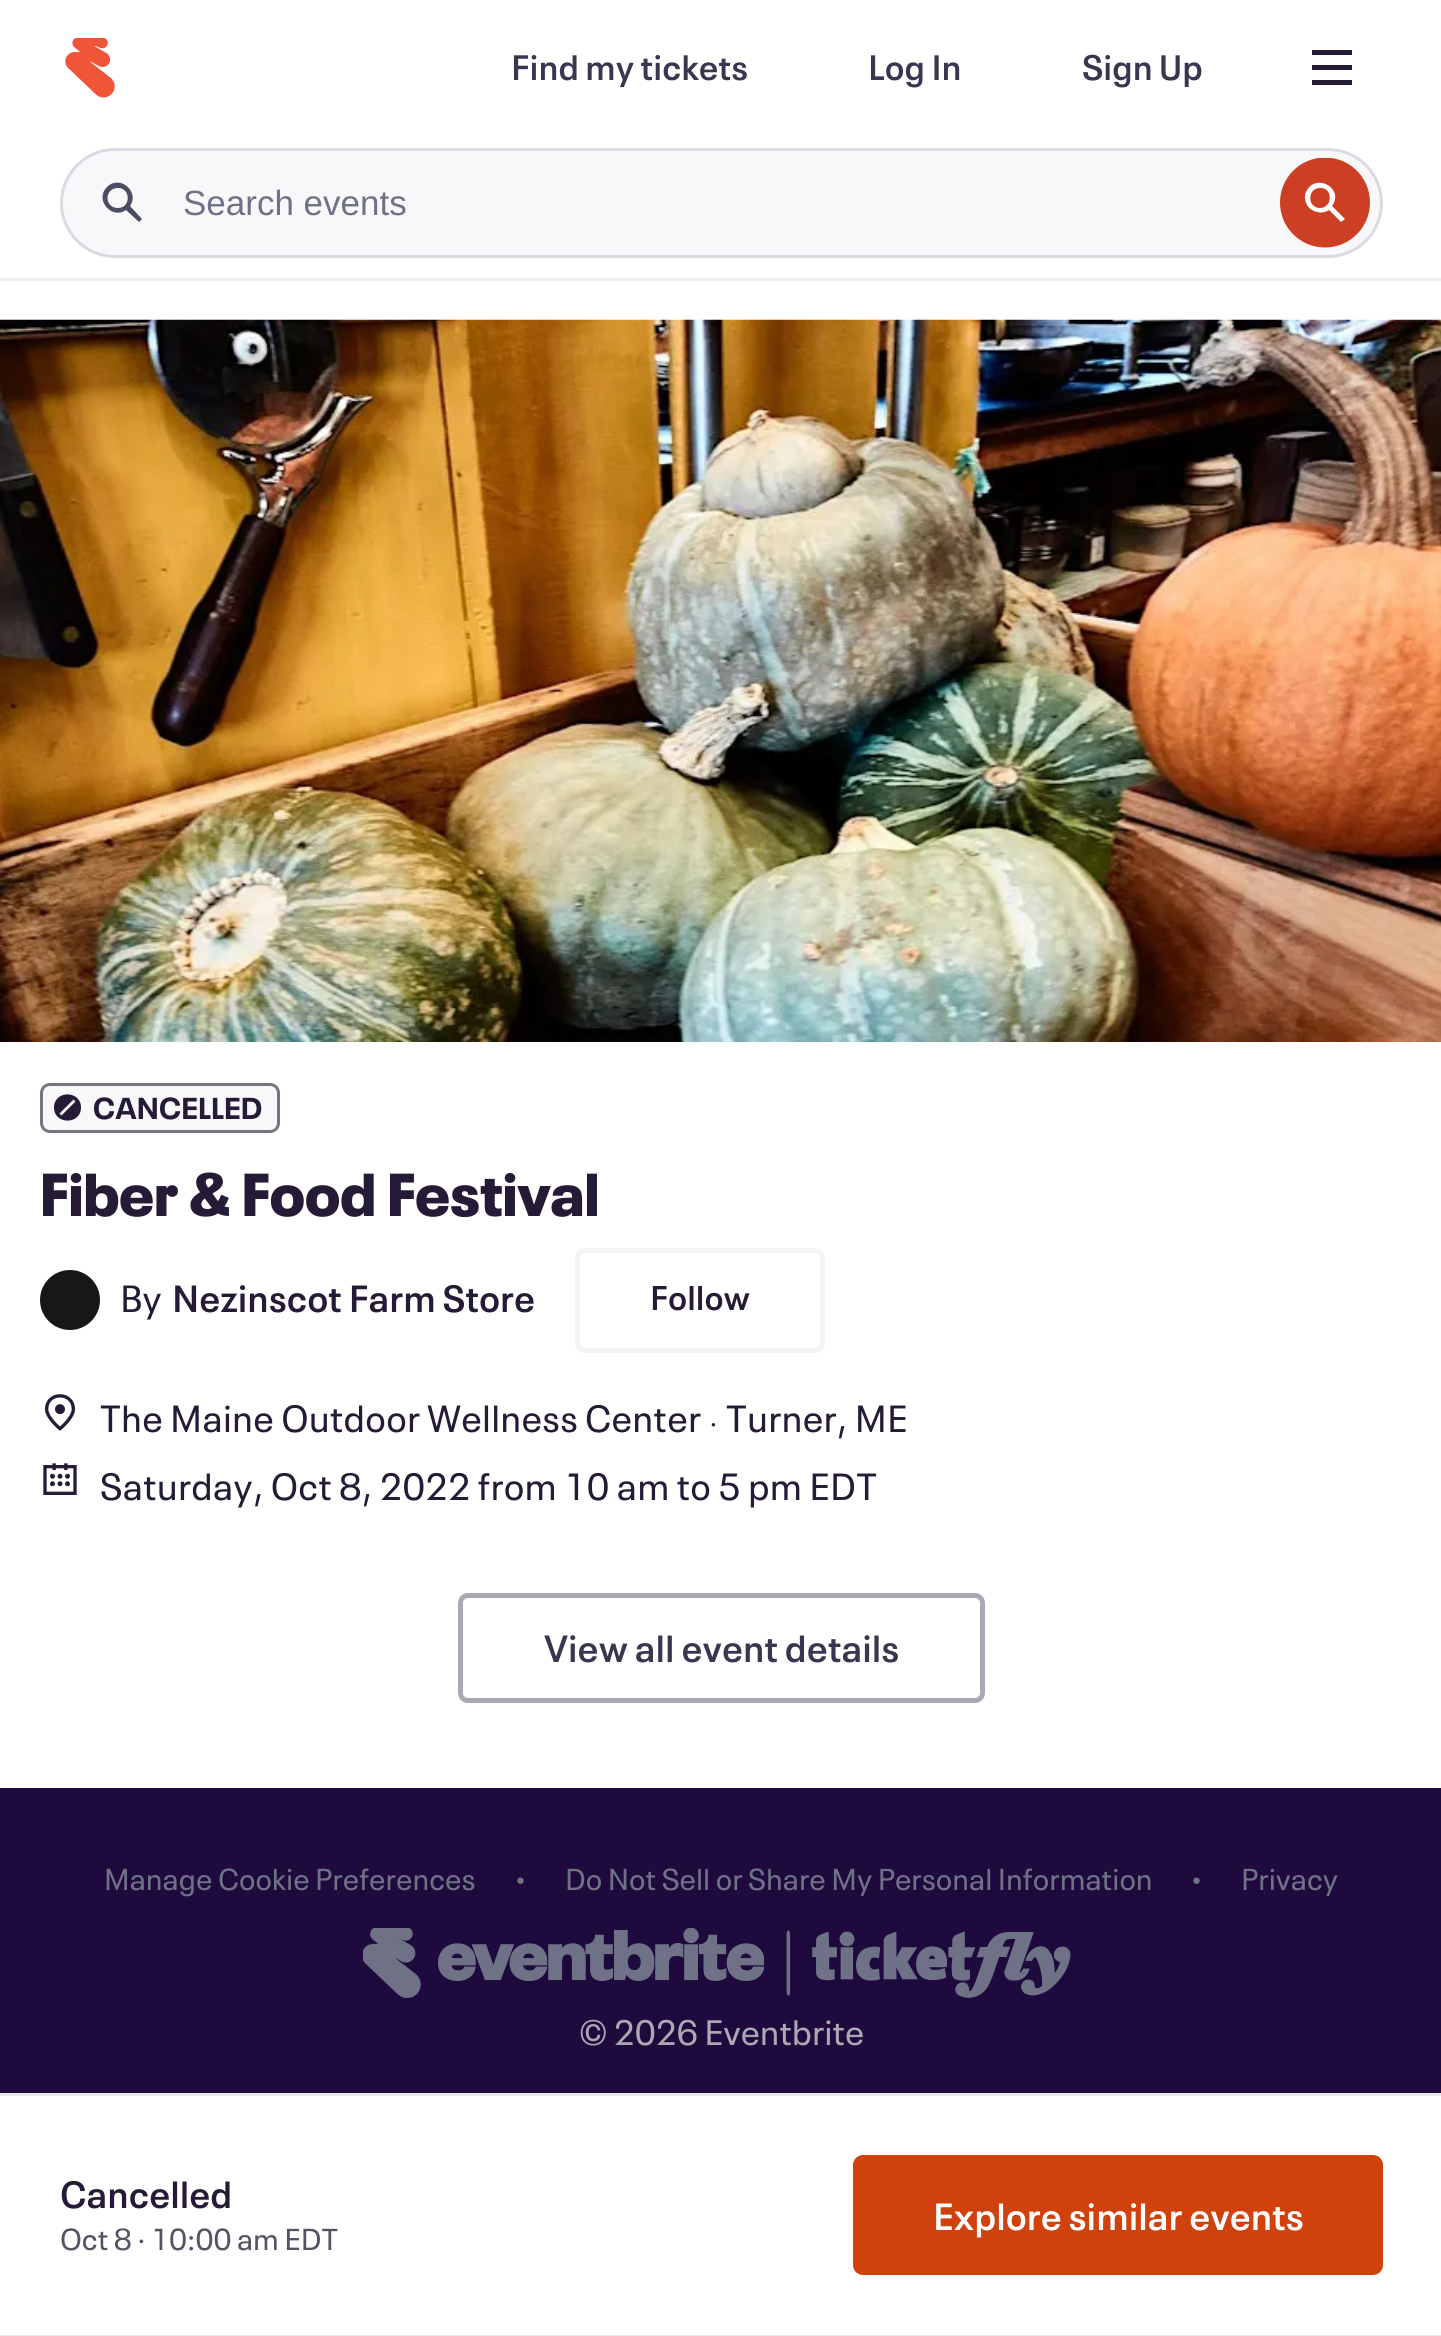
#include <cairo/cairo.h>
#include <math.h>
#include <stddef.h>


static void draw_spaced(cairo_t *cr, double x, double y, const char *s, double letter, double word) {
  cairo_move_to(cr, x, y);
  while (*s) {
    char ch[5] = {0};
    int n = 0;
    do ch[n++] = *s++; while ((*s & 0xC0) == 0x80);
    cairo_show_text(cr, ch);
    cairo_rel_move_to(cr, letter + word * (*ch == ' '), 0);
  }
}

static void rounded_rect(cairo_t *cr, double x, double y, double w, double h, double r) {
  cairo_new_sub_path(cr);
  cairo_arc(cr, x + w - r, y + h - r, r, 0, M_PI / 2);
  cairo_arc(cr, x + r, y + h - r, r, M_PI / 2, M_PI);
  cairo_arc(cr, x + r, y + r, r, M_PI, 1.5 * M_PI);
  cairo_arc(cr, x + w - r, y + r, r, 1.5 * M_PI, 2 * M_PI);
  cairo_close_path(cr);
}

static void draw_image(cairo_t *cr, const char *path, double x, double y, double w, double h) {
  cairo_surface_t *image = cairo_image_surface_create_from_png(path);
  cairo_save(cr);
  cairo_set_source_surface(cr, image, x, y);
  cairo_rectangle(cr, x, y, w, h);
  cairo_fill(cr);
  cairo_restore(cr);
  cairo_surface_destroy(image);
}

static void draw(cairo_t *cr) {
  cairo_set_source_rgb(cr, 1, 1, 1);
  cairo_paint(cr);
  cairo_set_source_rgb(cr, 238 / 255.0, 237 / 255.0, 242 / 255.0);
  cairo_rectangle(cr, 0, 278, 1441, 3);
  cairo_fill(cr);
  draw_image(cr, "images/1.png", 65, 38, 50, 60);
  cairo_set_source_rgb(cr, 38 / 255.0, 27 / 255.0, 54 / 255.0);
  cairo_new_path(cr);
  cairo_move_to(cr, 1352, 50);
  cairo_line_to(cr, 1312, 50);
  cairo_line_to(cr, 1312, 55);
  cairo_line_to(cr, 1352, 55);
  cairo_close_path(cr);
  cairo_move_to(cr, 1312, 65);
  cairo_line_to(cr, 1352, 65);
  cairo_line_to(cr, 1352, 70);
  cairo_line_to(cr, 1312, 70);
  cairo_close_path(cr);
  cairo_move_to(cr, 1312, 80);
  cairo_line_to(cr, 1352, 80);
  cairo_line_to(cr, 1352, 85);
  cairo_line_to(cr, 1312, 85);
  cairo_close_path(cr);
  cairo_fill(cr);
  cairo_set_source_rgb(cr, 248 / 255.0, 247 / 255.0, 250 / 255.0);
  rounded_rect(cr, 61.5, 149.5, 1320, 107, 53.5);
  cairo_fill_preserve(cr);
  cairo_set_source_rgb(cr, 219 / 255.0, 218 / 255.0, 227 / 255.0);
  cairo_set_line_width(cr, 3);
  cairo_stroke(cr);
  cairo_set_source_rgb(cr, 75 / 255.0, 77 / 255.0, 99 / 255.0);
  cairo_set_fill_rule(cr, CAIRO_FILL_RULE_EVEN_ODD);
  cairo_new_path(cr);
  cairo_move_to(cr, 118, 208);
  cairo_curve_to(cr, 131, 208, 131, 188, 118, 188);
  cairo_curve_to(cr, 104, 188, 104, 208, 118, 208);
  cairo_close_path(cr);
  cairo_move_to(cr, 126, 210);
  cairo_curve_to(cr, 112, 220, 94, 200, 107, 187);
  cairo_curve_to(cr, 120, 174, 140, 192, 130, 206);
  cairo_line_to(cr, 142, 219);
  cairo_line_to(cr, 139, 222);
  cairo_close_path(cr);
  cairo_fill(cr);
  cairo_save(cr);
  cairo_set_fill_rule(cr, CAIRO_FILL_RULE_WINDING);
  cairo_rectangle(cr, 1280, 158, 90, 90);
  cairo_clip(cr);
  cairo_set_source_rgb(cr, 204 / 255.0, 63 / 255.0, 36 / 255.0);
  cairo_arc(cr, 1325, 202.5, 45, 0, 2 * M_PI);
  cairo_fill(cr);
  cairo_restore(cr);
  cairo_set_source_rgb(cr, 1, 1, 1);
  cairo_new_path(cr);
  cairo_move_to(cr, 1332, 206);
  cairo_curve_to(cr, 1345, 188, 1315, 172, 1306, 192);
  cairo_curve_to(cr, 1304, 196, 1305, 201, 1307, 205);
  cairo_curve_to(cr, 1311, 212, 1322, 215, 1329, 210);
  cairo_line_to(cr, 1341, 222);
  cairo_line_to(cr, 1345, 219);
  cairo_close_path(cr);
  cairo_move_to(cr, 1320, 208);
  cairo_curve_to(cr, 1333, 208, 1333, 187, 1320, 188);
  cairo_curve_to(cr, 1307, 188, 1307, 208, 1320, 208);
  cairo_close_path(cr);
  cairo_fill(cr);
  draw_image(cr, "images/2.png", 0, 319, 1441, 723);
  cairo_set_source_rgb(cr, 248 / 255.0, 247 / 255.0, 250 / 255.0);
  rounded_rect(cr, 40, 1083, 240, 50, 10);
  cairo_fill(cr);
  rounded_rect(cr, 41.5, 1084.5, 237, 47, 8.5);
  cairo_set_source_rgba(cr, 38 / 255.0, 27 / 255.0, 54 / 255.0, 0.6);
  cairo_stroke(cr);
  cairo_set_source_rgb(cr, 38 / 255.0, 27 / 255.0, 54 / 255.0);
  cairo_new_path(cr);
  cairo_move_to(cr, 81, 1107.5);
  cairo_curve_to(cr, 81, 1125, 54, 1125, 54, 1107.5);
  cairo_curve_to(cr, 54, 1090, 81, 1090, 81, 1107.5);
  cairo_close_path(cr);
  cairo_move_to(cr, 61.5, 1115.5);
  cairo_line_to(cr, 75.5, 1101.5);
  cairo_line_to(cr, 73.5, 1099.5);
  cairo_line_to(cr, 59.5, 1113.5);
  cairo_close_path(cr);
  cairo_fill(cr);
  cairo_set_source_rgb(cr, 22 / 255.0, 23 / 255.0, 25 / 255.0);
  cairo_arc(cr, 70, 1300, 30, 0, 2 * M_PI);
  cairo_fill(cr);
  rounded_rect(cr, 577.5, 1250.5, 245, 100, 7.5);
  cairo_set_source_rgb(cr, 244 / 255.0, 244 / 255.0, 245 / 255.0);
  cairo_set_line_width(cr, 5);
  cairo_stroke(cr);
  draw_image(cr, "images/3.png", 45, 1394, 30, 37);
  draw_image(cr, "images/4.png", 43, 1463, 34, 32);
  rounded_rect(cr, 460.5, 1595.5, 522, 105, 7.5);
  cairo_set_source_rgb(cr, 169 / 255.0, 168 / 255.0, 179 / 255.0);
  cairo_stroke(cr);
  cairo_set_source_rgb(cr, 232 / 255.0, 232 / 255.0, 231 / 255.0);
  cairo_rectangle(cr, 0, 2093, 1441, 3);
  cairo_fill(cr);
  cairo_rectangle(cr, 0, 2335, 1441, 1);
  cairo_fill(cr);
  cairo_set_source_rgb(cr, 209 / 255.0, 65 / 255.0, 12 / 255.0);
  rounded_rect(cr, 853, 2155, 530, 120, 10);
  cairo_fill(cr);
  cairo_set_source_rgb(cr, 30 / 255.0, 10 / 255.0, 60 / 255.0);
  cairo_rectangle(cr, 0, 1788, 1441, 305);
  cairo_fill(cr);
  draw_image(cr, "images/5.png", 363, 1928, 708, 70);
  cairo_select_font_face(cr, "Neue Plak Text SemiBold", CAIRO_FONT_SLANT_NORMAL, CAIRO_FONT_WEIGHT_NORMAL);
  cairo_set_font_size(cr, 35);
  cairo_set_source_rgb(cr, 57 / 255.0, 54 / 255.0, 79 / 255.0);
  cairo_move_to(cr, 511, 80);
  cairo_show_text(cr, "Find my tickets");
  cairo_move_to(cr, 868, 80);
  cairo_show_text(cr, "Log In");
  cairo_move_to(cr, 1082, 80);
  cairo_show_text(cr, "Sign Up");
  cairo_select_font_face(cr, "Liberation Sans", CAIRO_FONT_SLANT_NORMAL, CAIRO_FONT_WEIGHT_NORMAL);
  cairo_set_source_rgb(cr, 111 / 255.0, 114 / 255.0, 135 / 255.0);
  cairo_move_to(cr, 183, 215);
  cairo_show_text(cr, "Search events");
  cairo_select_font_face(cr, "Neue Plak", CAIRO_FONT_SLANT_NORMAL, CAIRO_FONT_WEIGHT_BOLD);
  cairo_set_font_size(cr, 30);
  cairo_set_source_rgb(cr, 38 / 255.0, 27 / 255.0, 54 / 255.0);
  draw_spaced(cr, 93, 1119, "CANCELLED", 0.5, 0);
  cairo_select_font_face(cr, "Neue Plak Black", CAIRO_FONT_SLANT_NORMAL, CAIRO_FONT_WEIGHT_NORMAL);
  cairo_set_font_size(cr, 60);
  cairo_move_to(cr, 40, 1216);
  cairo_show_text(cr, "Fiber & Food Festival");
  cairo_select_font_face(cr, "Neue Plak Text", CAIRO_FONT_SLANT_NORMAL, CAIRO_FONT_WEIGHT_NORMAL);
  cairo_set_font_size(cr, 37.5);
  cairo_move_to(cr, 120, 1312);
  cairo_show_text(cr, "By");
  cairo_select_font_face(cr, "Neue Plak Text SemiBold", CAIRO_FONT_SLANT_NORMAL, CAIRO_FONT_WEIGHT_NORMAL);
  cairo_move_to(cr, 172, 1312);
  cairo_show_text(cr, "Nezinscot Farm Store");
  cairo_set_font_size(cr, 34);
  cairo_move_to(cr, 650, 1310);
  cairo_show_text(cr, "Follow");
  cairo_select_font_face(cr, "Neue Plak Text", CAIRO_FONT_SLANT_NORMAL, CAIRO_FONT_WEIGHT_NORMAL);
  cairo_set_font_size(cr, 37.5);
  draw_spaced(cr, 100, 1432, "The Maine Outdoor Wellness Center", 0.25, 0);
  cairo_select_font_face(cr, "Liberation Sans", CAIRO_FONT_SLANT_NORMAL, CAIRO_FONT_WEIGHT_NORMAL);
  cairo_set_font_size(cr, 8);
  draw_spaced(cr, 711, 1427, "●", 0.25, 0);
  cairo_select_font_face(cr, "Neue Plak Text", CAIRO_FONT_SLANT_NORMAL, CAIRO_FONT_WEIGHT_NORMAL);
  cairo_set_font_size(cr, 37.5);
  draw_spaced(cr, 726, 1432, "Turner, ME", 0.25, 0);
  draw_spaced(cr, 100, 1500, "Saturday, Oct 8, 2022 from 10 am to 5 pm EDT", 0.25, 0);
  cairo_select_font_face(cr, "Neue Plak Text SemiBold", CAIRO_FONT_SLANT_NORMAL, CAIRO_FONT_WEIGHT_NORMAL);
  cairo_set_source_rgb(cr, 57 / 255.0, 54 / 255.0, 79 / 255.0);
  cairo_move_to(cr, 544, 1662);
  cairo_show_text(cr, "View all event details");
  cairo_set_source_rgb(cr, 38 / 255.0, 27 / 255.0, 54 / 255.0);
  cairo_move_to(cr, 60, 2208);
  cairo_show_text(cr, "Cancelled");
  cairo_select_font_face(cr, "Neue Plak Text", CAIRO_FONT_SLANT_NORMAL, CAIRO_FONT_WEIGHT_NORMAL);
  cairo_set_font_size(cr, 30);
  cairo_set_source_rgb(cr, 88 / 255.0, 81 / 255.0, 99 / 255.0);
  cairo_move_to(cr, 60, 2250);
  cairo_show_text(cr, "Oct 8 · 10:00 am EDT");
  cairo_select_font_face(cr, "Neue Plak Text SemiBold", CAIRO_FONT_SLANT_NORMAL, CAIRO_FONT_WEIGHT_NORMAL);
  cairo_set_font_size(cr, 37.5);
  cairo_set_source_rgb(cr, 1, 1, 1);
  cairo_move_to(cr, 933, 2230);
  cairo_show_text(cr, "Explore similar events");
  cairo_select_font_face(cr, "Neue Plak Text", CAIRO_FONT_SLANT_NORMAL, CAIRO_FONT_WEIGHT_NORMAL);
  cairo_set_font_size(cr, 30);
  cairo_set_source_rgb(cr, 111 / 255.0, 114 / 255.0, 135 / 255.0);
  cairo_move_to(cr, 104, 1890);
  cairo_show_text(cr, "Manage Cookie Preferences");
  cairo_select_font_face(cr, "Liberation Sans", CAIRO_FONT_SLANT_NORMAL, CAIRO_FONT_WEIGHT_NORMAL);
  cairo_set_font_size(cr, 15);
  cairo_move_to(cr, 516, 1885);
  cairo_show_text(cr, "●");
  cairo_select_font_face(cr, "Neue Plak Text", CAIRO_FONT_SLANT_NORMAL, CAIRO_FONT_WEIGHT_NORMAL);
  cairo_set_font_size(cr, 30);
  cairo_move_to(cr, 565, 1890);
  cairo_show_text(cr, "Do Not Sell or Share My Personal Information");
  cairo_select_font_face(cr, "Liberation Sans", CAIRO_FONT_SLANT_NORMAL, CAIRO_FONT_WEIGHT_NORMAL);
  cairo_set_font_size(cr, 15);
  cairo_move_to(cr, 1192, 1885);
  cairo_show_text(cr, "●");
  cairo_select_font_face(cr, "Neue Plak Text", CAIRO_FONT_SLANT_NORMAL, CAIRO_FONT_WEIGHT_NORMAL);
  cairo_set_font_size(cr, 30);
  cairo_move_to(cr, 1241, 1890);
  cairo_show_text(cr, "Privacy");
  cairo_set_font_size(cr, 35);
  cairo_set_source_rgb(cr, 169 / 255.0, 168 / 255.0, 179 / 255.0);
  cairo_move_to(cr, 579, 2045);
  cairo_show_text(cr, "© 2026 Eventbrite");
}

int main(void) {
  cairo_surface_t *surface = cairo_image_surface_create(CAIRO_FORMAT_RGB24, 1441, 2336);
  cairo_t *cr = cairo_create(surface);
  cairo_font_options_t *options = cairo_font_options_create();
  cairo_font_options_set_hint_metrics(options, CAIRO_HINT_METRICS_OFF);
  cairo_font_options_set_hint_style(options, CAIRO_HINT_STYLE_NONE);
  cairo_set_font_options(cr, options);
  cairo_set_miter_limit(cr, 4);
  draw(cr);
  cairo_surface_write_to_png(surface, "out.png");
  cairo_font_options_destroy(options);
  cairo_destroy(cr);
  cairo_surface_destroy(surface);
  return 0;
}
